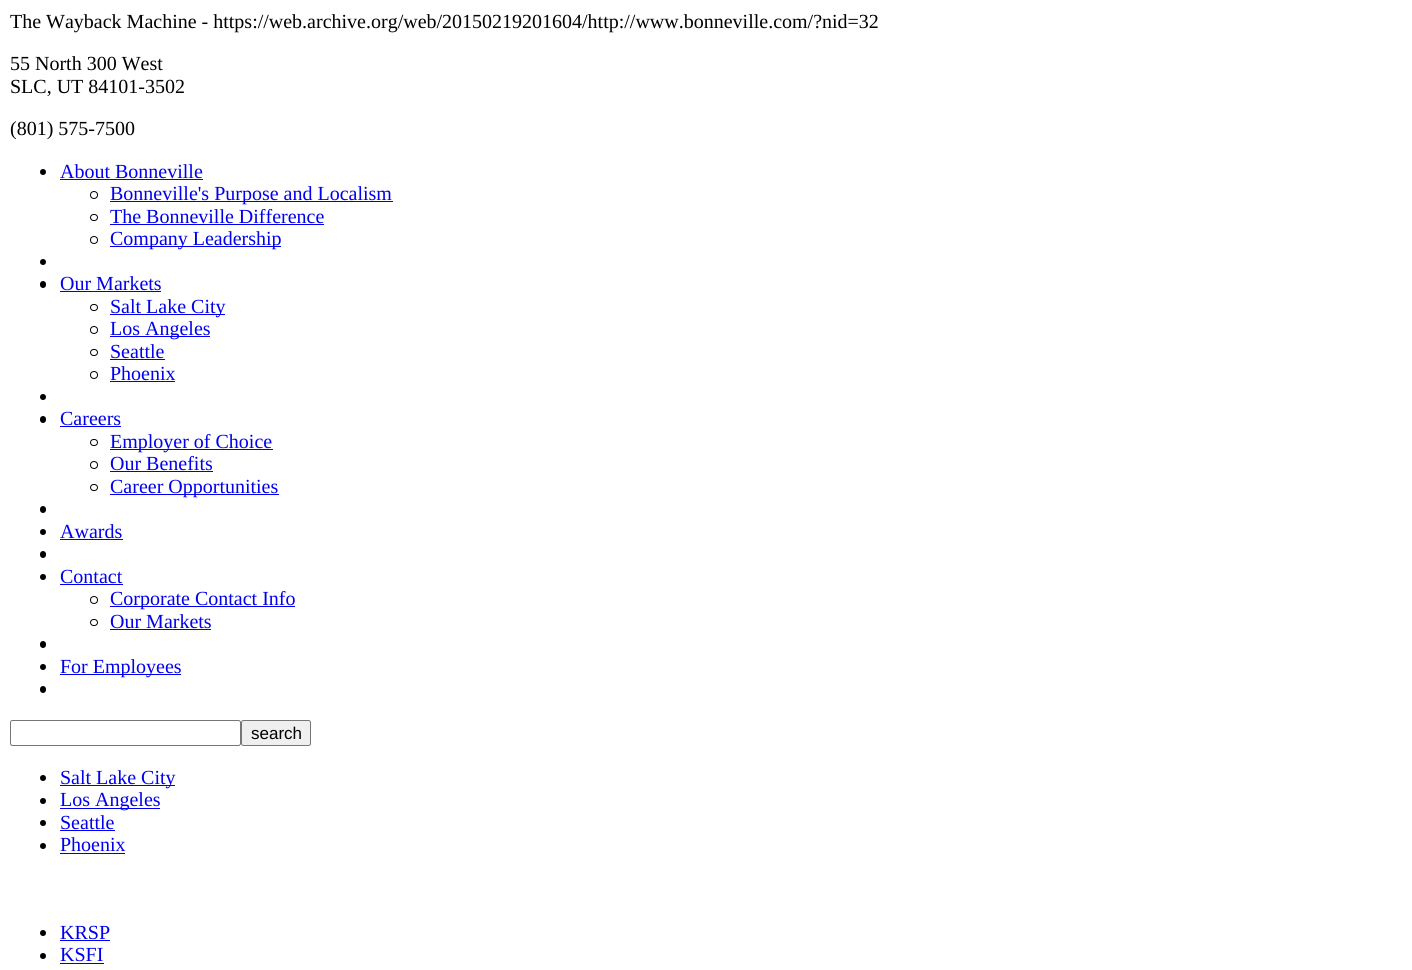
#include <cairo/cairo.h>
#include <math.h>
#include <stddef.h>


static void rounded_rect(cairo_t *cr, double x, double y, double w, double h, double r) {
  cairo_new_sub_path(cr);
  cairo_arc(cr, x + w - r, y + h - r, r, 0, M_PI / 2);
  cairo_arc(cr, x + r, y + h - r, r, M_PI / 2, M_PI);
  cairo_arc(cr, x + r, y + r, r, M_PI, 1.5 * M_PI);
  cairo_arc(cr, x + w - r, y + r, r, 1.5 * M_PI, 2 * M_PI);
  cairo_close_path(cr);
}

static void draw(cairo_t *cr) {
  cairo_set_source_rgb(cr, 1, 1, 1);
  cairo_paint(cr);
  cairo_set_source_rgb(cr, 0, 0, 0);
  cairo_arc(cr, 43, 172, 3, 0, 2 * M_PI);
  cairo_fill(cr);
  cairo_set_source_rgb(cr, 0, 0, 238 / 255.0);
  cairo_rectangle(cr, 60, 179, 143, 1);
  cairo_fill(cr);
  cairo_arc(cr, 94, 195, 3.5, 0, 2 * M_PI);
  cairo_set_source_rgb(cr, 0, 0, 0);
  cairo_set_line_width(cr, 1);
  cairo_stroke(cr);
  cairo_set_source_rgb(cr, 0, 0, 238 / 255.0);
  cairo_rectangle(cr, 110, 201, 283, 1);
  cairo_fill(cr);
  rounded_rect(cr, 90.5, 214.5, 7, 6, 3);
  cairo_set_source_rgb(cr, 0, 0, 0);
  cairo_stroke(cr);
  cairo_set_source_rgb(cr, 0, 0, 238 / 255.0);
  cairo_rectangle(cr, 110, 224, 214, 1);
  cairo_fill(cr);
  cairo_arc(cr, 94, 240, 3.5, 0, 2 * M_PI);
  cairo_set_source_rgb(cr, 0, 0, 0);
  cairo_stroke(cr);
  cairo_set_source_rgb(cr, 0, 0, 238 / 255.0);
  cairo_rectangle(cr, 110, 246, 171, 1);
  cairo_fill(cr);
  cairo_set_source_rgb(cr, 0, 0, 0);
  cairo_arc(cr, 43, 262, 3, 0, 2 * M_PI);
  cairo_fill(cr);
  rounded_rect(cr, 40, 281, 6, 7, 3);
  cairo_fill(cr);
  cairo_set_source_rgb(cr, 0, 0, 238 / 255.0);
  cairo_rectangle(cr, 60, 291, 101, 1);
  cairo_fill(cr);
  rounded_rect(cr, 90.5, 304.5, 7, 6, 3);
  cairo_set_source_rgb(cr, 0, 0, 0);
  cairo_stroke(cr);
  cairo_set_source_rgb(cr, 0, 0, 238 / 255.0);
  cairo_rectangle(cr, 110, 314, 115, 1);
  cairo_fill(cr);
  cairo_arc(cr, 94, 330, 3.5, 0, 2 * M_PI);
  cairo_set_source_rgb(cr, 0, 0, 0);
  cairo_stroke(cr);
  cairo_set_source_rgb(cr, 0, 0, 238 / 255.0);
  cairo_rectangle(cr, 110, 336, 100, 1);
  cairo_fill(cr);
  rounded_rect(cr, 90.5, 349.5, 7, 6, 3);
  cairo_set_source_rgb(cr, 0, 0, 0);
  cairo_stroke(cr);
  cairo_set_source_rgb(cr, 0, 0, 238 / 255.0);
  cairo_rectangle(cr, 110, 359, 55, 1);
  cairo_fill(cr);
  cairo_arc(cr, 94, 375, 3.5, 0, 2 * M_PI);
  cairo_set_source_rgb(cr, 0, 0, 0);
  cairo_stroke(cr);
  cairo_set_source_rgb(cr, 0, 0, 238 / 255.0);
  cairo_rectangle(cr, 110, 381, 65, 1);
  cairo_fill(cr);
  cairo_set_source_rgb(cr, 0, 0, 0);
  cairo_arc(cr, 43, 397, 3, 0, 2 * M_PI);
  cairo_fill(cr);
  rounded_rect(cr, 40, 416, 6, 7, 3);
  cairo_fill(cr);
  cairo_set_source_rgb(cr, 0, 0, 238 / 255.0);
  cairo_rectangle(cr, 60, 426, 61, 1);
  cairo_fill(cr);
  rounded_rect(cr, 90.5, 439.5, 7, 6, 3);
  cairo_set_source_rgb(cr, 0, 0, 0);
  cairo_stroke(cr);
  cairo_set_source_rgb(cr, 0, 0, 238 / 255.0);
  cairo_rectangle(cr, 110, 449, 163, 1);
  cairo_fill(cr);
  cairo_arc(cr, 94, 465, 3.5, 0, 2 * M_PI);
  cairo_set_source_rgb(cr, 0, 0, 0);
  cairo_stroke(cr);
  cairo_set_source_rgb(cr, 0, 0, 238 / 255.0);
  cairo_rectangle(cr, 110, 471, 103, 1);
  cairo_fill(cr);
  rounded_rect(cr, 90.5, 484.5, 7, 6, 3);
  cairo_set_source_rgb(cr, 0, 0, 0);
  cairo_stroke(cr);
  cairo_set_source_rgb(cr, 0, 0, 238 / 255.0);
  cairo_rectangle(cr, 110, 494, 169, 1);
  cairo_fill(cr);
  cairo_set_source_rgb(cr, 0, 0, 0);
  rounded_rect(cr, 40, 506, 6, 7, 3);
  cairo_fill(cr);
  cairo_arc(cr, 43, 532, 3, 0, 2 * M_PI);
  cairo_fill(cr);
  cairo_set_source_rgb(cr, 0, 0, 238 / 255.0);
  cairo_rectangle(cr, 60, 539, 63, 1);
  cairo_fill(cr);
  cairo_set_source_rgb(cr, 0, 0, 0);
  rounded_rect(cr, 40, 551, 6, 7, 3);
  cairo_fill(cr);
  cairo_arc(cr, 43, 577, 3, 0, 2 * M_PI);
  cairo_fill(cr);
  cairo_set_source_rgb(cr, 0, 0, 238 / 255.0);
  cairo_rectangle(cr, 60, 584, 63, 1);
  cairo_fill(cr);
  cairo_arc(cr, 94, 600, 3.5, 0, 2 * M_PI);
  cairo_set_source_rgb(cr, 0, 0, 0);
  cairo_stroke(cr);
  cairo_set_source_rgb(cr, 0, 0, 238 / 255.0);
  cairo_rectangle(cr, 110, 606, 185, 1);
  cairo_fill(cr);
  rounded_rect(cr, 90.5, 619.5, 7, 6, 3);
  cairo_set_source_rgb(cr, 0, 0, 0);
  cairo_stroke(cr);
  cairo_set_source_rgb(cr, 0, 0, 238 / 255.0);
  cairo_rectangle(cr, 110, 629, 101, 1);
  cairo_fill(cr);
  cairo_set_source_rgb(cr, 0, 0, 0);
  rounded_rect(cr, 40, 641, 6, 7, 3);
  cairo_fill(cr);
  cairo_arc(cr, 43, 667, 3, 0, 2 * M_PI);
  cairo_fill(cr);
  cairo_set_source_rgb(cr, 0, 0, 238 / 255.0);
  cairo_rectangle(cr, 60, 674, 121, 1);
  cairo_fill(cr);
  cairo_set_source_rgb(cr, 0, 0, 0);
  rounded_rect(cr, 40, 686, 6, 7, 3);
  cairo_fill(cr);
  rounded_rect(cr, 10.5, 720.5, 230, 25, 2);
  cairo_set_source_rgb(cr, 118 / 255.0, 118 / 255.0, 118 / 255.0);
  cairo_stroke(cr);
  cairo_set_source_rgb(cr, 239 / 255.0, 239 / 255.0, 239 / 255.0);
  rounded_rect(cr, 241.5, 720.5, 69, 25, 2);
  cairo_fill_preserve(cr);
  cairo_set_source_rgb(cr, 118 / 255.0, 118 / 255.0, 118 / 255.0);
  cairo_stroke(cr);
  cairo_set_source_rgb(cr, 0, 0, 0);
  cairo_arc(cr, 43, 778, 3, 0, 2 * M_PI);
  cairo_fill(cr);
  cairo_set_source_rgb(cr, 0, 0, 238 / 255.0);
  cairo_rectangle(cr, 60, 785, 115, 1);
  cairo_fill(cr);
  cairo_set_source_rgb(cr, 0, 0, 0);
  cairo_arc(cr, 43, 801, 3, 0, 2 * M_PI);
  cairo_fill(cr);
  cairo_set_source_rgb(cr, 0, 0, 238 / 255.0);
  cairo_rectangle(cr, 60, 808, 100, 1);
  cairo_fill(cr);
  cairo_set_source_rgb(cr, 0, 0, 0);
  cairo_arc(cr, 43, 823, 3, 0, 2 * M_PI);
  cairo_fill(cr);
  cairo_set_source_rgb(cr, 0, 0, 238 / 255.0);
  cairo_rectangle(cr, 60, 830, 55, 1);
  cairo_fill(cr);
  cairo_set_source_rgb(cr, 0, 0, 0);
  cairo_arc(cr, 43, 846, 3, 0, 2 * M_PI);
  cairo_fill(cr);
  cairo_set_source_rgb(cr, 0, 0, 238 / 255.0);
  cairo_rectangle(cr, 60, 853, 65, 1);
  cairo_fill(cr);
  cairo_set_source_rgb(cr, 0, 0, 0);
  cairo_arc(cr, 43, 933, 3, 0, 2 * M_PI);
  cairo_fill(cr);
  cairo_set_source_rgb(cr, 0, 0, 238 / 255.0);
  cairo_rectangle(cr, 60, 940, 50, 1);
  cairo_fill(cr);
  cairo_set_source_rgb(cr, 0, 0, 0);
  cairo_arc(cr, 43, 956, 3, 0, 2 * M_PI);
  cairo_fill(cr);
  cairo_set_source_rgb(cr, 0, 0, 238 / 255.0);
  cairo_rectangle(cr, 60, 963, 44, 1);
  cairo_fill(cr);
  cairo_select_font_face(cr, "Liberation Serif", CAIRO_FONT_SLANT_NORMAL, CAIRO_FONT_WEIGHT_NORMAL);
  cairo_set_font_size(cr, 20);
  cairo_set_source_rgb(cr, 0, 0, 0);
  cairo_move_to(cr, 10, 28);
  cairo_show_text(cr, "The Wayback Machine - https://web.archive.org/web/20150219201604/http://www.bonneville.com/?nid=32");
  cairo_move_to(cr, 10, 70);
  cairo_show_text(cr, "55 North 300 West");
  cairo_move_to(cr, 10, 93);
  cairo_show_text(cr, "SLC, UT 84101-3502");
  cairo_move_to(cr, 10, 135);
  cairo_show_text(cr, "(801) 575-7500");
  cairo_set_source_rgb(cr, 0, 0, 238 / 255.0);
  cairo_move_to(cr, 60, 178);
  cairo_show_text(cr, "About Bonneville");
  cairo_move_to(cr, 110, 200);
  cairo_show_text(cr, "Bonneville's Purpose and Localism");
  cairo_move_to(cr, 110, 223);
  cairo_show_text(cr, "The Bonneville Difference");
  cairo_move_to(cr, 110, 245);
  cairo_show_text(cr, "Company Leadership");
  cairo_move_to(cr, 60, 290);
  cairo_show_text(cr, "Our Markets");
  cairo_move_to(cr, 110, 313);
  cairo_show_text(cr, "Salt Lake City");
  cairo_move_to(cr, 110, 335);
  cairo_show_text(cr, "Los Angeles");
  cairo_move_to(cr, 110, 358);
  cairo_show_text(cr, "Seattle");
  cairo_move_to(cr, 110, 380);
  cairo_show_text(cr, "Phoenix");
  cairo_move_to(cr, 60, 425);
  cairo_show_text(cr, "Careers");
  cairo_move_to(cr, 110, 448);
  cairo_show_text(cr, "Employer of Choice");
  cairo_move_to(cr, 110, 470);
  cairo_show_text(cr, "Our Benefits");
  cairo_move_to(cr, 110, 493);
  cairo_show_text(cr, "Career Opportunities");
  cairo_move_to(cr, 60, 538);
  cairo_show_text(cr, "Awards");
  cairo_move_to(cr, 60, 583);
  cairo_show_text(cr, "Contact");
  cairo_move_to(cr, 110, 605);
  cairo_show_text(cr, "Corporate Contact Info");
  cairo_move_to(cr, 110, 628);
  cairo_show_text(cr, "Our Markets");
  cairo_move_to(cr, 60, 673);
  cairo_show_text(cr, "For Employees");
  cairo_select_font_face(cr, "Liberation Sans", CAIRO_FONT_SLANT_NORMAL, CAIRO_FONT_WEIGHT_NORMAL);
  cairo_set_font_size(cr, 17);
  cairo_set_source_rgb(cr, 0, 0, 0);
  cairo_move_to(cr, 251, 739);
  cairo_show_text(cr, "search");
  cairo_select_font_face(cr, "Liberation Serif", CAIRO_FONT_SLANT_NORMAL, CAIRO_FONT_WEIGHT_NORMAL);
  cairo_set_font_size(cr, 20);
  cairo_set_source_rgb(cr, 0, 0, 238 / 255.0);
  cairo_move_to(cr, 60, 784);
  cairo_show_text(cr, "Salt Lake City");
  cairo_move_to(cr, 60, 806);
  cairo_show_text(cr, "Los Angeles");
  cairo_move_to(cr, 60, 829);
  cairo_show_text(cr, "Seattle");
  cairo_move_to(cr, 60, 851);
  cairo_show_text(cr, "Phoenix");
  cairo_move_to(cr, 60, 939);
  cairo_show_text(cr, "KRSP");
  cairo_move_to(cr, 60, 961);
  cairo_show_text(cr, "KSFI");
}

int main(void) {
  cairo_surface_t *surface = cairo_image_surface_create(CAIRO_FORMAT_RGB24, 1412, 970);
  cairo_t *cr = cairo_create(surface);
  cairo_font_options_t *options = cairo_font_options_create();
  cairo_font_options_set_hint_metrics(options, CAIRO_HINT_METRICS_OFF);
  cairo_font_options_set_hint_style(options, CAIRO_HINT_STYLE_NONE);
  cairo_set_font_options(cr, options);
  cairo_set_miter_limit(cr, 4);
  draw(cr);
  cairo_surface_write_to_png(surface, "out.png");
  cairo_font_options_destroy(options);
  cairo_destroy(cr);
  cairo_surface_destroy(surface);
  return 0;
}
